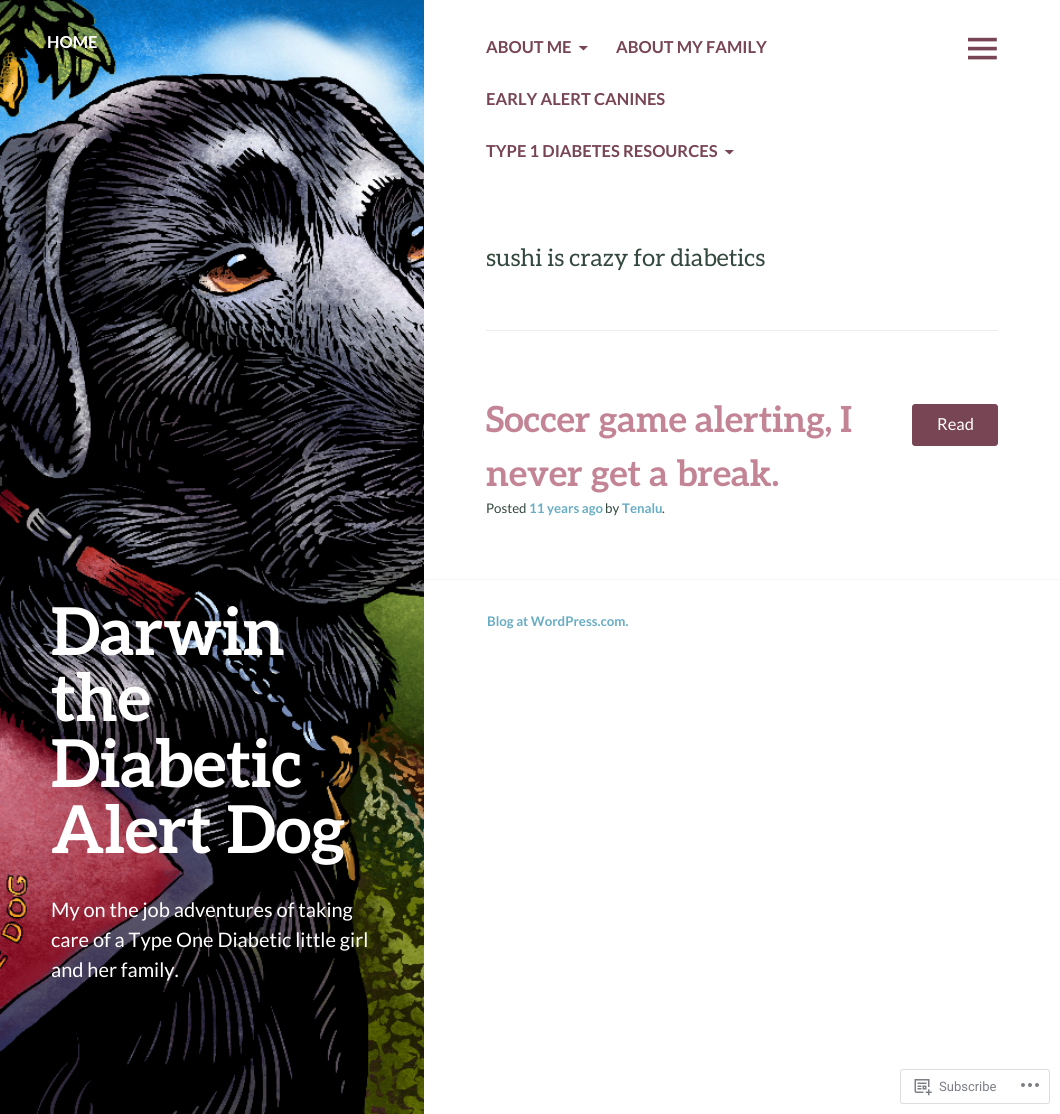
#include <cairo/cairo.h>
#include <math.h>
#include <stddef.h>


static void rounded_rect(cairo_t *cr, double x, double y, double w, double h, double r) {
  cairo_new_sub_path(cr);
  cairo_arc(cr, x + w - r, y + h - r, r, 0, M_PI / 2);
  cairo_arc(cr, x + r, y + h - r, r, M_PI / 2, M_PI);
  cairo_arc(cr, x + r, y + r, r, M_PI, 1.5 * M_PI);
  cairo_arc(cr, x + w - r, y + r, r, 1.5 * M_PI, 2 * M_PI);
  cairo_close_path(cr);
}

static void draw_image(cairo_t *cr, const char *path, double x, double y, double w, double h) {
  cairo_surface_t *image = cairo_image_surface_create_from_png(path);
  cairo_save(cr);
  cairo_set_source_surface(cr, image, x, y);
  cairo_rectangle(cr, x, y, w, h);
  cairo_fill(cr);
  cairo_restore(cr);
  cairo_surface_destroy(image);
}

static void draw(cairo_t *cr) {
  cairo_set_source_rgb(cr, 1, 1, 1);
  cairo_paint(cr);
  cairo_set_source_rgb(cr, 119 / 255.0, 69 / 255.0, 83 / 255.0);
  cairo_new_path(cr);
  cairo_move_to(cr, 578.5, 46);
  cairo_line_to(cr, 588, 46);
  cairo_line_to(cr, 583.5, 50.5);
  cairo_close_path(cr);
  cairo_fill(cr);
  cairo_new_path(cr);
  cairo_move_to(cr, 724.5, 150);
  cairo_line_to(cr, 734, 150);
  cairo_line_to(cr, 729.5, 154.5);
  cairo_close_path(cr);
  cairo_fill(cr);
  draw_image(cr, "images/1.png", 968, 37, 29, 23);
  cairo_set_source_rgb(cr, 235 / 255.0, 237 / 255.0, 236 / 255.0);
  cairo_rectangle(cr, 486, 330, 512, 1);
  cairo_fill(cr);
  cairo_set_source_rgb(cr, 119 / 255.0, 69 / 255.0, 83 / 255.0);
  rounded_rect(cr, 912, 404, 86, 42, 3);
  cairo_fill(cr);
  draw_image(cr, "images/2.png", 0, 0, 424, 1114);
  cairo_set_source_rgb(cr, 245 / 255.0, 246 / 255.0, 245 / 255.0);
  cairo_rectangle(cr, 424, 579, 636, 1);
  cairo_fill(cr);
  rounded_rect(cr, 900.5, 1069.5, 149, 34, 2.5);
  cairo_set_source_rgb(cr, 221 / 255.0, 221 / 255.0, 223 / 255.0);
  cairo_set_line_width(cr, 1);
  cairo_stroke(cr);
  draw_image(cr, "images/3.png", 914, 1079, 18, 17);
  draw_image(cr, "images/4.png", 1021, 1083, 18, 4);
  cairo_select_font_face(cr, "Lato", CAIRO_FONT_SLANT_NORMAL, CAIRO_FONT_WEIGHT_BOLD);
  cairo_set_font_size(cr, 16.5);
  cairo_set_source_rgb(cr, 1, 1, 1);
  cairo_move_to(cr, 47, 48);
  cairo_show_text(cr, "HOME");
  cairo_set_source_rgb(cr, 119 / 255.0, 69 / 255.0, 83 / 255.0);
  cairo_move_to(cr, 486, 53);
  cairo_show_text(cr, "ABOUT ME");
  cairo_move_to(cr, 616, 53);
  cairo_show_text(cr, "ABOUT MY FAMILY");
  cairo_move_to(cr, 486, 105);
  cairo_show_text(cr, "EARLY ALERT CANINES");
  cairo_move_to(cr, 486, 157);
  cairo_show_text(cr, "TYPE 1 DIABETES RESOURCES");
  cairo_select_font_face(cr, "Aleo", CAIRO_FONT_SLANT_NORMAL, CAIRO_FONT_WEIGHT_NORMAL);
  cairo_set_font_size(cr, 24);
  cairo_set_source_rgb(cr, 51 / 255.0, 71 / 255.0, 61 / 255.0);
  cairo_move_to(cr, 486, 266);
  cairo_show_text(cr, "sushi is crazy for diabetics");
  cairo_select_font_face(cr, "Aleo", CAIRO_FONT_SLANT_NORMAL, CAIRO_FONT_WEIGHT_BOLD);
  cairo_set_font_size(cr, 36);
  cairo_set_source_rgb(cr, 195 / 255.0, 133 / 255.0, 150 / 255.0);
  cairo_move_to(cr, 486, 432);
  cairo_show_text(cr, "Soccer game alerting, I");
  cairo_move_to(cr, 486, 486);
  cairo_show_text(cr, "never get a break.");
  cairo_select_font_face(cr, "Lato", CAIRO_FONT_SLANT_NORMAL, CAIRO_FONT_WEIGHT_NORMAL);
  cairo_set_font_size(cr, 16.5);
  cairo_set_source_rgb(cr, 1, 1, 1);
  cairo_move_to(cr, 937, 430);
  cairo_show_text(cr, "Read");
  cairo_set_font_size(cr, 13.25);
  cairo_set_source_rgb(cr, 51 / 255.0, 71 / 255.0, 61 / 255.0);
  cairo_move_to(cr, 486, 513);
  cairo_show_text(cr, "Posted");
  cairo_select_font_face(cr, "Lato", CAIRO_FONT_SLANT_NORMAL, CAIRO_FONT_WEIGHT_BOLD);
  cairo_set_source_rgb(cr, 104 / 255.0, 173 / 255.0, 195 / 255.0);
  cairo_move_to(cr, 529, 513);
  cairo_show_text(cr, "11 years ago");
  cairo_select_font_face(cr, "Lato", CAIRO_FONT_SLANT_NORMAL, CAIRO_FONT_WEIGHT_NORMAL);
  cairo_set_source_rgb(cr, 51 / 255.0, 71 / 255.0, 61 / 255.0);
  cairo_move_to(cr, 605, 513);
  cairo_show_text(cr, "by");
  cairo_select_font_face(cr, "Lato", CAIRO_FONT_SLANT_NORMAL, CAIRO_FONT_WEIGHT_BOLD);
  cairo_set_source_rgb(cr, 104 / 255.0, 173 / 255.0, 195 / 255.0);
  cairo_move_to(cr, 622, 513);
  cairo_show_text(cr, "Tenalu");
  cairo_select_font_face(cr, "Lato", CAIRO_FONT_SLANT_NORMAL, CAIRO_FONT_WEIGHT_NORMAL);
  cairo_set_source_rgb(cr, 51 / 255.0, 71 / 255.0, 61 / 255.0);
  cairo_move_to(cr, 662, 513);
  cairo_show_text(cr, ".");
  cairo_select_font_face(cr, "Aleo", CAIRO_FONT_SLANT_NORMAL, CAIRO_FONT_WEIGHT_BOLD);
  cairo_set_font_size(cr, 66);
  cairo_set_source_rgb(cr, 1, 1, 1);
  cairo_move_to(cr, 51, 655);
  cairo_show_text(cr, "Darwin");
  cairo_move_to(cr, 51, 721);
  cairo_show_text(cr, "the");
  cairo_move_to(cr, 51, 787);
  cairo_show_text(cr, "Diabetic");
  cairo_move_to(cr, 51, 853);
  cairo_show_text(cr, "Alert Dog");
  cairo_select_font_face(cr, "Lato", CAIRO_FONT_SLANT_NORMAL, CAIRO_FONT_WEIGHT_NORMAL);
  cairo_set_font_size(cr, 20);
  cairo_move_to(cr, 51, 917);
  cairo_show_text(cr, "My on the job adventures of taking");
  cairo_move_to(cr, 51, 947);
  cairo_show_text(cr, "care of a Type One Diabetic little girl");
  cairo_move_to(cr, 51, 977);
  cairo_show_text(cr, "and her family.");
  cairo_select_font_face(cr, "Lato", CAIRO_FONT_SLANT_NORMAL, CAIRO_FONT_WEIGHT_BOLD);
  cairo_set_font_size(cr, 13.25);
  cairo_set_source_rgb(cr, 104 / 255.0, 173 / 255.0, 195 / 255.0);
  cairo_move_to(cr, 487, 626);
  cairo_show_text(cr, "Blog at WordPress.com.");
  cairo_select_font_face(cr, "Roboto", CAIRO_FONT_SLANT_NORMAL, CAIRO_FONT_WEIGHT_NORMAL);
  cairo_set_font_size(cr, 13);
  cairo_set_source_rgb(cr, 123 / 255.0, 127 / 255.0, 133 / 255.0);
  cairo_move_to(cr, 939, 1091);
  cairo_show_text(cr, "Subscribe");
}

int main(void) {
  cairo_surface_t *surface = cairo_image_surface_create(CAIRO_FORMAT_RGB24, 1060, 1114);
  cairo_t *cr = cairo_create(surface);
  cairo_font_options_t *options = cairo_font_options_create();
  cairo_font_options_set_hint_metrics(options, CAIRO_HINT_METRICS_OFF);
  cairo_font_options_set_hint_style(options, CAIRO_HINT_STYLE_NONE);
  cairo_set_font_options(cr, options);
  cairo_set_miter_limit(cr, 4);
  draw(cr);
  cairo_surface_write_to_png(surface, "out.png");
  cairo_font_options_destroy(options);
  cairo_destroy(cr);
  cairo_surface_destroy(surface);
  return 0;
}
